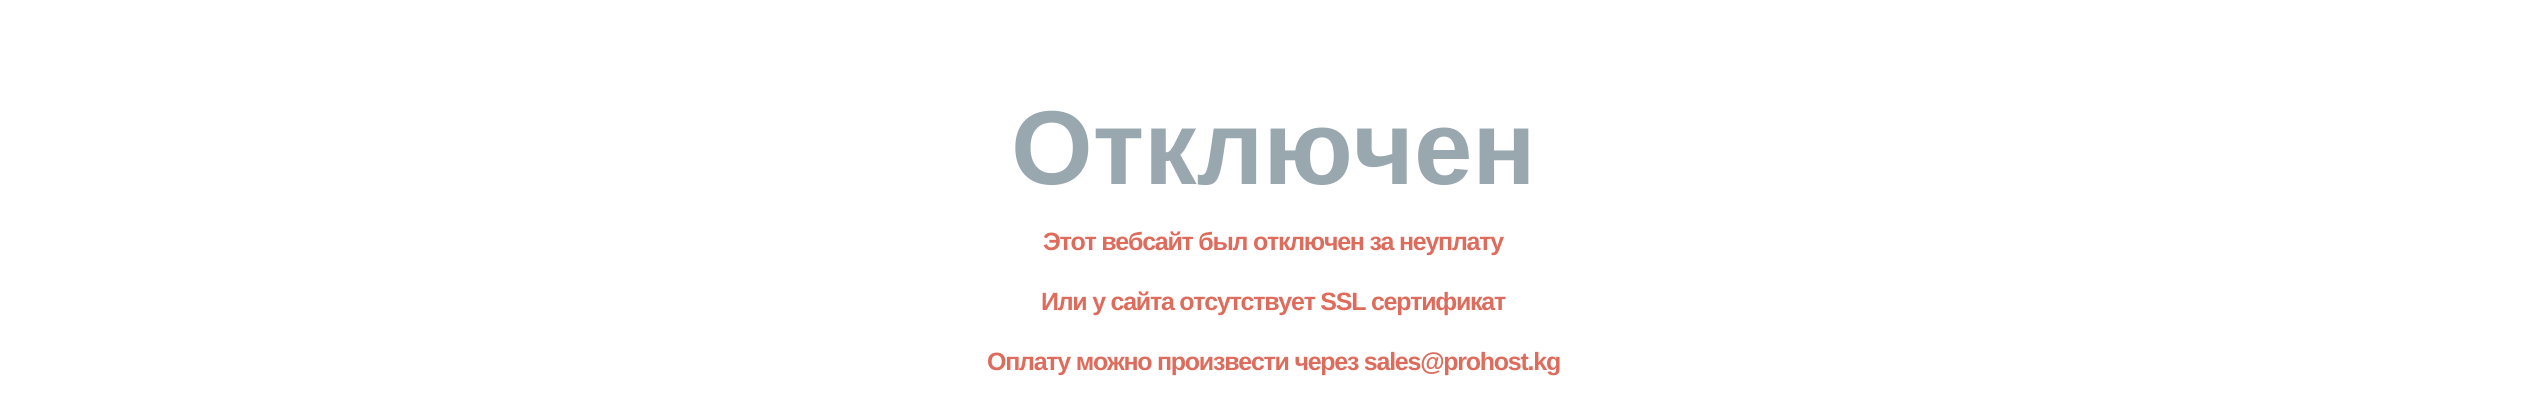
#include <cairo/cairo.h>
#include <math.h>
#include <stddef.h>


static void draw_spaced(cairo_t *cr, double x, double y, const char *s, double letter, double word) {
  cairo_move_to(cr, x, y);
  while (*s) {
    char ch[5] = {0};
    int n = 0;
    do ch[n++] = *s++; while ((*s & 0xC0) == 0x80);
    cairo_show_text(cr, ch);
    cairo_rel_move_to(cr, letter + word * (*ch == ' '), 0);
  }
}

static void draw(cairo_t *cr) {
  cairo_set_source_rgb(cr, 1, 1, 1);
  cairo_paint(cr);
  cairo_select_font_face(cr, "Liberation Sans", CAIRO_FONT_SLANT_NORMAL, CAIRO_FONT_WEIGHT_BOLD);
  cairo_set_font_size(cr, 105);
  cairo_set_source_rgb(cr, 153 / 255.0, 167 / 255.0, 175 / 255.0);
  cairo_move_to(cr, 1011, 184);
  cairo_show_text(cr, "Отключен");
  cairo_set_font_size(cr, 25);
  cairo_set_source_rgb(cr, 222 / 255.0, 108 / 255.0, 93 / 255.0);
  draw_spaced(cr, 1043, 250, "Этот вебсайт был отключен за неуплату", -1.25, 0);
  draw_spaced(cr, 1041, 310, "Или у сайта отсутствует SSL сертификат", -1.25, 0);
  draw_spaced(cr, 987, 370, "Оплату можно произвести через sales@prohost.kg", -1.25, 0);
}

int main(void) {
  cairo_surface_t *surface = cairo_image_surface_create(CAIRO_FORMAT_RGB24, 2546, 414);
  cairo_t *cr = cairo_create(surface);
  cairo_font_options_t *options = cairo_font_options_create();
  cairo_font_options_set_hint_metrics(options, CAIRO_HINT_METRICS_OFF);
  cairo_font_options_set_hint_style(options, CAIRO_HINT_STYLE_NONE);
  cairo_set_font_options(cr, options);
  cairo_set_miter_limit(cr, 4);
  draw(cr);
  cairo_surface_write_to_png(surface, "out.png");
  cairo_font_options_destroy(options);
  cairo_destroy(cr);
  cairo_surface_destroy(surface);
  return 0;
}
